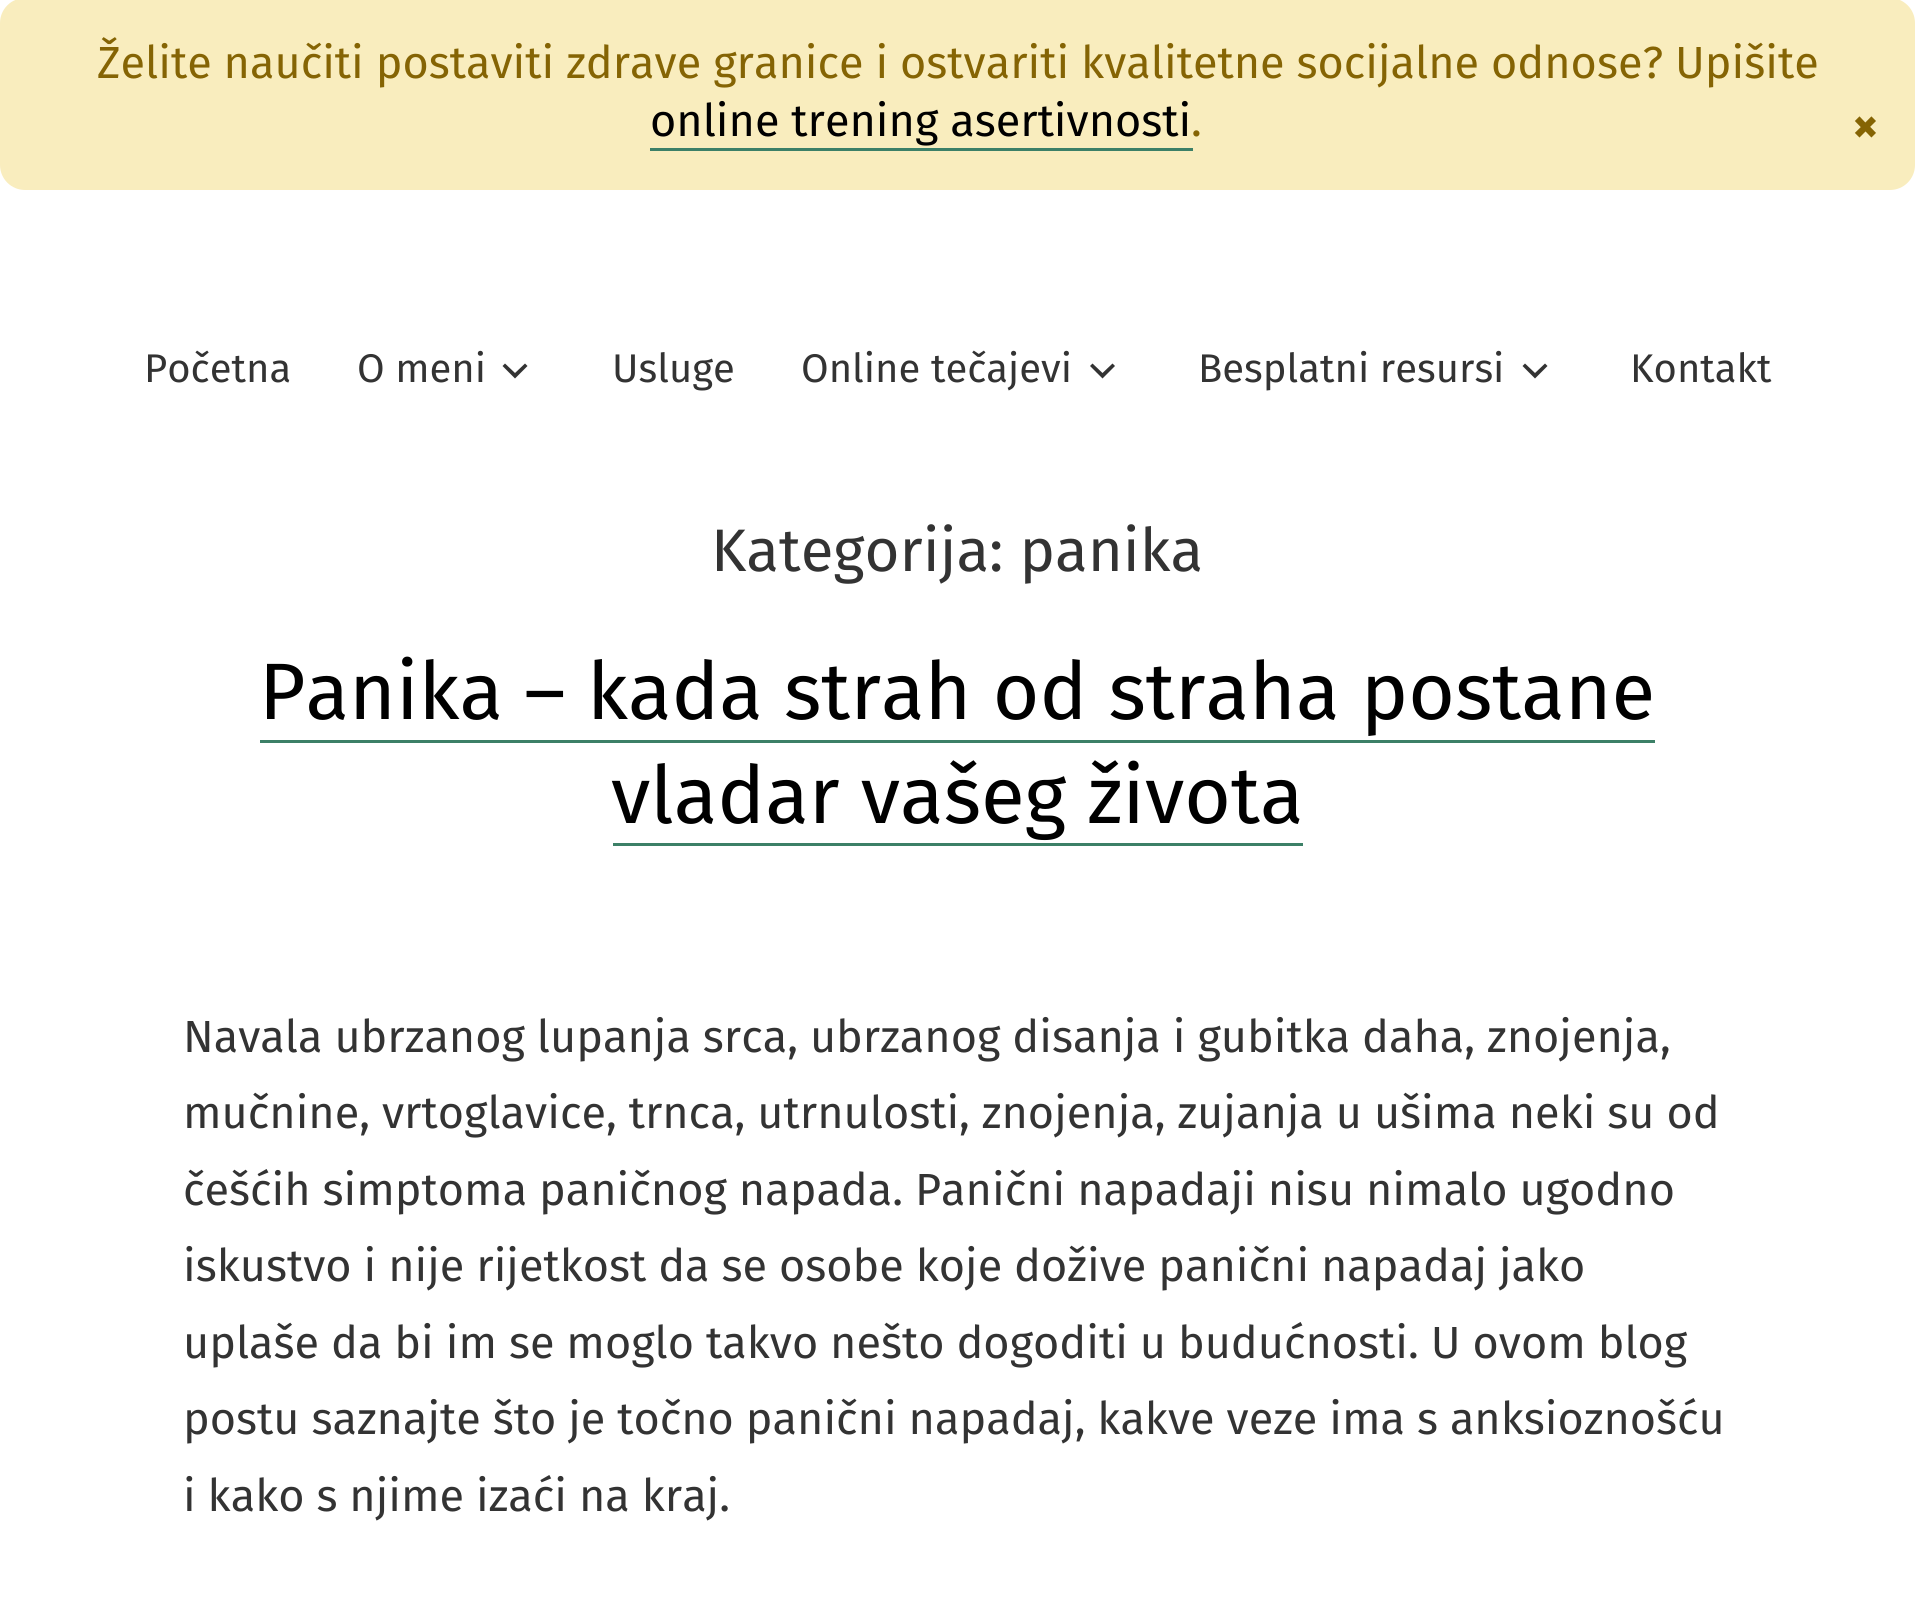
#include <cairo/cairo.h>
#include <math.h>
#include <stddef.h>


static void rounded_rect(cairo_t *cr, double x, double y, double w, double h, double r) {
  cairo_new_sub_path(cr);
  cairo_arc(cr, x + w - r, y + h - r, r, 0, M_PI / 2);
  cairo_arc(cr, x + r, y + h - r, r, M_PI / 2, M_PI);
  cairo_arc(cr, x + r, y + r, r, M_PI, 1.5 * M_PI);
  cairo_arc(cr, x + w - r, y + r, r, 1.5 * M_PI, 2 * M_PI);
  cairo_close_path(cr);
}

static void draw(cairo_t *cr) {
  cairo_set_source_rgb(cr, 1, 1, 1);
  cairo_paint(cr);
  cairo_set_source_rgb(cr, 249 / 255.0, 237 / 255.0, 190 / 255.0);
  rounded_rect(cr, 0, -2, 1915, 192, 25);
  cairo_fill(cr);
  cairo_set_source_rgb(cr, 60 / 255.0, 128 / 255.0, 103 / 255.0);
  cairo_rectangle(cr, 650, 148, 543, 3);
  cairo_fill(cr);
  cairo_set_source_rgb(cr, 51 / 255.0, 51 / 255.0, 51 / 255.0);
  cairo_set_fill_rule(cr, CAIRO_FILL_RULE_EVEN_ODD);
  cairo_new_path(cr);
  cairo_move_to(cr, 502.5, 366);
  cairo_line_to(cr, 515, 378.5);
  cairo_line_to(cr, 527.5, 366);
  cairo_line_to(cr, 525, 363.5);
  cairo_line_to(cr, 515, 373);
  cairo_line_to(cr, 505, 363.5);
  cairo_close_path(cr);
  cairo_fill(cr);
  cairo_new_path(cr);
  cairo_move_to(cr, 1090, 366);
  cairo_line_to(cr, 1102.5, 378.5);
  cairo_line_to(cr, 1115, 366);
  cairo_line_to(cr, 1112.5, 363.5);
  cairo_line_to(cr, 1102.5, 373);
  cairo_line_to(cr, 1092.5, 363.5);
  cairo_close_path(cr);
  cairo_fill(cr);
  cairo_new_path(cr);
  cairo_move_to(cr, 1522.5, 366);
  cairo_line_to(cr, 1535, 378.5);
  cairo_line_to(cr, 1547.5, 366);
  cairo_line_to(cr, 1545, 363.5);
  cairo_line_to(cr, 1535, 373);
  cairo_line_to(cr, 1525, 363.5);
  cairo_close_path(cr);
  cairo_fill(cr);
  cairo_set_source_rgb(cr, 60 / 255.0, 128 / 255.0, 103 / 255.0);
  cairo_rectangle(cr, 260, 740, 1395, 3);
  cairo_fill(cr);
  cairo_rectangle(cr, 613, 843, 690, 3);
  cairo_fill(cr);
  cairo_select_font_face(cr, "Fira Sans", CAIRO_FONT_SLANT_NORMAL, CAIRO_FONT_WEIGHT_NORMAL);
  cairo_set_font_size(cr, 45);
  cairo_set_source_rgb(cr, 133 / 255.0, 100 / 255.0, 4 / 255.0);
  cairo_move_to(cr, 97, 78);
  cairo_show_text(cr, "Želite naučiti postaviti zdrave granice i ostvariti kvalitetne socijalne odnose? Upišite");
  cairo_set_source_rgb(cr, 0, 0, 0);
  cairo_move_to(cr, 650, 136);
  cairo_show_text(cr, "online trening asertivnosti");
  cairo_set_source_rgb(cr, 133 / 255.0, 100 / 255.0, 4 / 255.0);
  cairo_move_to(cr, 1191, 136);
  cairo_show_text(cr, ".");
  cairo_select_font_face(cr, "Fira Sans", CAIRO_FONT_SLANT_NORMAL, CAIRO_FONT_WEIGHT_BOLD);
  cairo_set_font_size(cr, 50);
  cairo_move_to(cr, 1852, 143);
  cairo_show_text(cr, "×");
  cairo_select_font_face(cr, "Fira Sans", CAIRO_FONT_SLANT_NORMAL, CAIRO_FONT_WEIGHT_NORMAL);
  cairo_set_font_size(cr, 40);
  cairo_set_source_rgb(cr, 51 / 255.0, 51 / 255.0, 51 / 255.0);
  cairo_move_to(cr, 144, 382);
  cairo_show_text(cr, "Početna");
  cairo_move_to(cr, 357, 382);
  cairo_show_text(cr, "O meni");
  cairo_move_to(cr, 612, 382);
  cairo_show_text(cr, "Usluge");
  cairo_move_to(cr, 801, 382);
  cairo_show_text(cr, "Online tečajevi");
  cairo_move_to(cr, 1198, 382);
  cairo_show_text(cr, "Besplatni resursi");
  cairo_move_to(cr, 1630, 382);
  cairo_show_text(cr, "Kontakt");
  cairo_set_font_size(cr, 60);
  cairo_move_to(cr, 711, 571);
  cairo_show_text(cr, "Kategorija: panika");
  cairo_set_font_size(cr, 80);
  cairo_set_source_rgb(cr, 0, 0, 0);
  cairo_move_to(cr, 259, 719);
  cairo_show_text(cr, "Panika – kada strah od straha postane");
  cairo_move_to(cr, 611, 823);
  cairo_show_text(cr, "vladar vašeg života");
  cairo_set_font_size(cr, 45);
  cairo_set_source_rgb(cr, 51 / 255.0, 51 / 255.0, 51 / 255.0);
  cairo_move_to(cr, 183, 1052);
  cairo_show_text(cr, "Navala ubrzanog lupanja srca, ubrzanog disanja i gubitka daha, znojenja,");
  cairo_move_to(cr, 183, 1128);
  cairo_show_text(cr, "mučnine, vrtoglavice, trnca, utrnulosti, znojenja, zujanja u ušima neki su od");
  cairo_move_to(cr, 183, 1205);
  cairo_show_text(cr, "češćih simptoma paničnog napada. Panični napadaji nisu nimalo ugodno");
  cairo_move_to(cr, 183, 1281);
  cairo_show_text(cr, "iskustvo i nije rijetkost da se osobe koje dožive panični napadaj jako");
  cairo_move_to(cr, 183, 1358);
  cairo_show_text(cr, "uplaše da bi im se moglo takvo nešto dogoditi u budućnosti. U ovom blog");
  cairo_move_to(cr, 183, 1434);
  cairo_show_text(cr, "postu saznajte što je točno panični napadaj, kakve veze ima s anksioznošću");
  cairo_move_to(cr, 183, 1511);
  cairo_show_text(cr, "i kako s njime izaći na kraj.");
}

int main(void) {
  cairo_surface_t *surface = cairo_image_surface_create(CAIRO_FORMAT_RGB24, 1915, 1614);
  cairo_t *cr = cairo_create(surface);
  cairo_font_options_t *options = cairo_font_options_create();
  cairo_font_options_set_hint_metrics(options, CAIRO_HINT_METRICS_OFF);
  cairo_font_options_set_hint_style(options, CAIRO_HINT_STYLE_NONE);
  cairo_set_font_options(cr, options);
  cairo_set_miter_limit(cr, 4);
  draw(cr);
  cairo_surface_write_to_png(surface, "out.png");
  cairo_font_options_destroy(options);
  cairo_destroy(cr);
  cairo_surface_destroy(surface);
  return 0;
}
